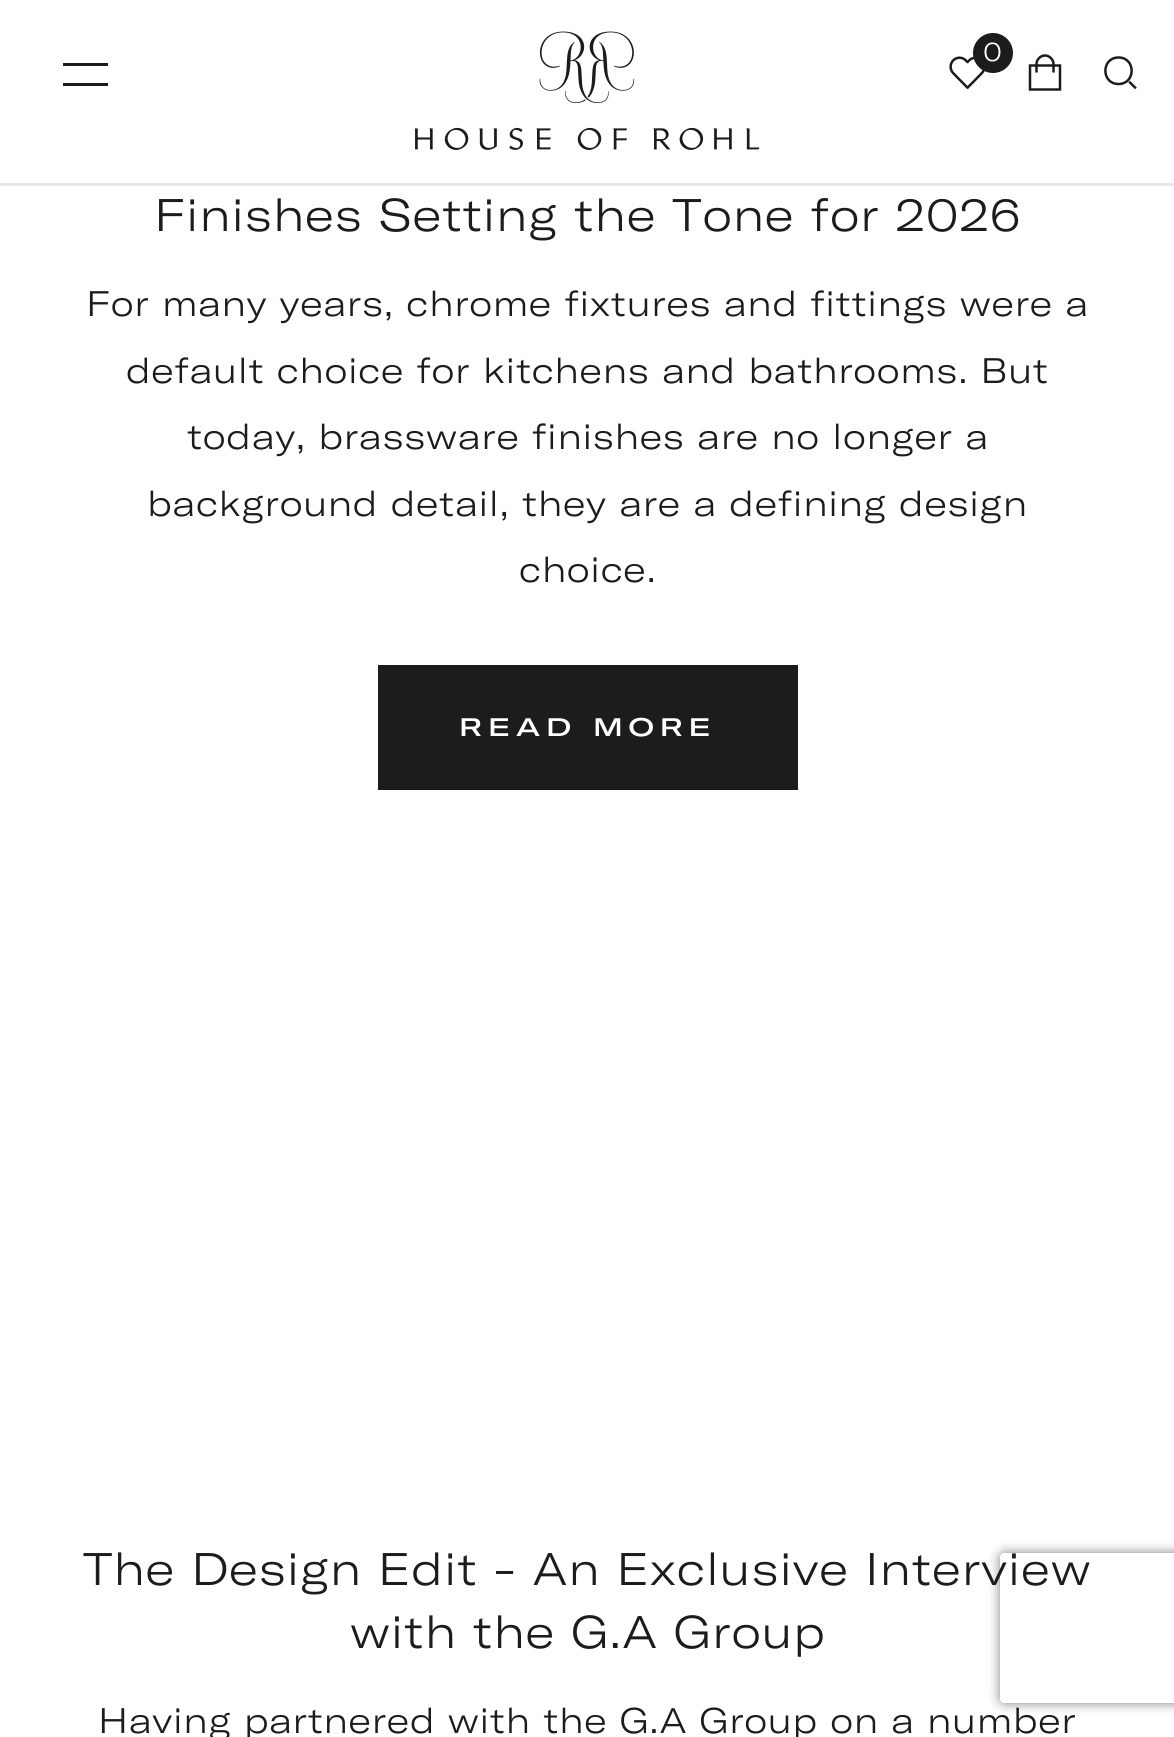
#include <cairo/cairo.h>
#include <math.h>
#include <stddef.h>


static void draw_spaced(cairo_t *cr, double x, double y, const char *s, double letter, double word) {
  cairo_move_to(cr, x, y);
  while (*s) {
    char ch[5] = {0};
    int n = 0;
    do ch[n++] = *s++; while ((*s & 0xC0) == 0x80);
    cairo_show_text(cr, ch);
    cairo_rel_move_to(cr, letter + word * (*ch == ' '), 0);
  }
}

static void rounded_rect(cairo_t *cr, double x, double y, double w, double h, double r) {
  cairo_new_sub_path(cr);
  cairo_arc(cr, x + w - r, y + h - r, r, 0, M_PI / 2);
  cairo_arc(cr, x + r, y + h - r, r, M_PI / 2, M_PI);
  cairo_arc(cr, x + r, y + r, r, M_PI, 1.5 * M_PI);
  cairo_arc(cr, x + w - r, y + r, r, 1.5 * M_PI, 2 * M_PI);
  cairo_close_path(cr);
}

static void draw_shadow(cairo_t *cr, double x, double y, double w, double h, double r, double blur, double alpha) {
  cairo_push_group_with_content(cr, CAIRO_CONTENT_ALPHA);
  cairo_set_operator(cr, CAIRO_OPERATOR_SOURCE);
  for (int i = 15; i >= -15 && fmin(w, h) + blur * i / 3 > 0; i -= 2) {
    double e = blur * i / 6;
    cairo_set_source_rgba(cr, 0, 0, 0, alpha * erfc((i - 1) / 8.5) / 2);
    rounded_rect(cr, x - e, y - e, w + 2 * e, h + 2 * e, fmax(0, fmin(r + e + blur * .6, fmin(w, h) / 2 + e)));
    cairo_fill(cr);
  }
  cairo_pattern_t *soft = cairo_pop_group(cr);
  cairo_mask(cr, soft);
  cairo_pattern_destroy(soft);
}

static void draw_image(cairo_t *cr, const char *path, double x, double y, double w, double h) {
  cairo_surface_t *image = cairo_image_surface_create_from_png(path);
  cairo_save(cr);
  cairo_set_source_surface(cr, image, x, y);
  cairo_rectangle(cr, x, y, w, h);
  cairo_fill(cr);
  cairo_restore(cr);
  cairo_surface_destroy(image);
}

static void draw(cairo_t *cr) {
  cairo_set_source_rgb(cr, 1, 1, 1);
  cairo_paint(cr);
  cairo_set_source_rgb(cr, 233 / 255.0, 233 / 255.0, 233 / 255.0);
  cairo_rectangle(cr, 0, 183, 1174, 3);
  cairo_fill(cr);
  draw_image(cr, "images/1.png", 415, 31, 345, 119);
  draw_image(cr, "images/2.png", 949, 56, 36, 33);
  cairo_set_source_rgb(cr, 28 / 255.0, 28 / 255.0, 28 / 255.0);
  cairo_arc(cr, 993, 53, 20, 0, 2 * M_PI);
  cairo_fill(cr);
  cairo_new_path(cr);
  cairo_move_to(cr, 1030, 89.5);
  cairo_line_to(cr, 1030, 65.5);
  cairo_line_to(cr, 1060, 65.5);
  cairo_line_to(cr, 1060, 89.5);
  cairo_close_path(cr);
  cairo_move_to(cr, 1036.5, 72.5);
  cairo_line_to(cr, 1036.5, 64);
  cairo_curve_to(cr, 1036.5, 59.5, 1040.5, 55.5, 1045, 55.5);
  cairo_curve_to(cr, 1049.5, 55.5, 1053.5, 59.5, 1053.5, 64);
  cairo_line_to(cr, 1053.5, 72.5);
  cairo_set_line_width(cr, 2.5);
  cairo_stroke(cr);
  cairo_new_path(cr);
  cairo_move_to(cr, 1118.5, 84);
  cairo_curve_to(cr, 1136, 84, 1136, 57.5, 1118.5, 57.5);
  cairo_curve_to(cr, 1101, 57.5, 1101, 84, 1118.5, 84);
  cairo_close_path(cr);
  cairo_move_to(cr, 1135, 87.5);
  cairo_line_to(cr, 1130, 82.5);
  cairo_set_line_cap(cr, CAIRO_LINE_CAP_SQUARE);
  cairo_set_line_join(cr, CAIRO_LINE_JOIN_ROUND);
  cairo_stroke(cr);
  cairo_rectangle(cr, 63, 63, 45, 3);
  cairo_fill(cr);
  cairo_rectangle(cr, 63, 83, 45, 3);
  cairo_fill(cr);
  cairo_rectangle(cr, 378, 665, 420, 125);
  cairo_fill(cr);
  cairo_save(cr);
  cairo_set_fill_rule(cr, CAIRO_FILL_RULE_EVEN_ODD);
  cairo_new_path(cr);
  cairo_move_to(cr, 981, 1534);
  cairo_line_to(cr, 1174, 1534);
  cairo_line_to(cr, 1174, 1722);
  cairo_line_to(cr, 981, 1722);
  cairo_close_path(cr);
  cairo_move_to(cr, 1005, 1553);
  cairo_line_to(cr, 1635, 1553);
  cairo_curve_to(cr, 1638, 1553, 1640, 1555, 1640, 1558);
  cairo_line_to(cr, 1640, 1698);
  cairo_curve_to(cr, 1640, 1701, 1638, 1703, 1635, 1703);
  cairo_line_to(cr, 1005, 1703);
  cairo_curve_to(cr, 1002, 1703, 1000, 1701, 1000, 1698);
  cairo_line_to(cr, 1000, 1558);
  cairo_curve_to(cr, 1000, 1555, 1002, 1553, 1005, 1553);
  cairo_close_path(cr);
  cairo_clip(cr);
  cairo_set_source_rgb(cr, 128 / 255.0, 128 / 255.0, 128 / 255.0);
  draw_shadow(cr, 1000, 1553, 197, 150, 5, 6, 1);
  cairo_restore(cr);
  cairo_select_font_face(cr, "GT America Light", CAIRO_FONT_SLANT_NORMAL, CAIRO_FONT_WEIGHT_NORMAL);
  cairo_set_font_size(cr, 26);
  cairo_set_source_rgb(cr, 1, 1, 1);
  cairo_move_to(cr, 983, 61);
  cairo_show_text(cr, "0");
  cairo_set_font_size(cr, 45);
  cairo_set_source_rgb(cr, 28 / 255.0, 28 / 255.0, 28 / 255.0);
  draw_spaced(cr, 154, 231, "Finishes Setting the Tone for 2026", 0.9, 0);
  cairo_set_font_size(cr, 35);
  draw_spaced(cr, 86, 316, "For many years, chrome fixtures and fittings were a", 0.7, 0);
  draw_spaced(cr, 126, 383, "default choice for kitchens and bathrooms. But", 0.7, 0);
  draw_spaced(cr, 187, 449, "today, brassware finishes are no longer a", 0.7, 0);
  draw_spaced(cr, 147, 516, "background detail, they are a defining design", 0.7, 0);
  draw_spaced(cr, 519, 582, "choice.", 0.7, 0);
  cairo_select_font_face(cr, "GT America Medium", CAIRO_FONT_SLANT_NORMAL, CAIRO_FONT_WEIGHT_NORMAL);
  cairo_set_font_size(cr, 25);
  cairo_set_source_rgb(cr, 1, 1, 1);
  draw_spaced(cr, 459, 736, "READ MORE", 6, 0);
  cairo_select_font_face(cr, "GT America Light", CAIRO_FONT_SLANT_NORMAL, CAIRO_FONT_WEIGHT_NORMAL);
  cairo_set_font_size(cr, 45);
  cairo_set_source_rgb(cr, 28 / 255.0, 28 / 255.0, 28 / 255.0);
  draw_spaced(cr, 83, 1585, "The Design Edit - An Exclusive Interview", 0.9, 0);
  draw_spaced(cr, 350, 1648, "with the G.A Group", 0.9, 0);
  cairo_set_font_size(cr, 35);
  draw_spaced(cr, 98, 1733, "Having partnered with the G.A Group on a number", 0.7, 0);
}

int main(void) {
  cairo_surface_t *surface = cairo_image_surface_create(CAIRO_FORMAT_RGB24, 1174, 1737);
  cairo_t *cr = cairo_create(surface);
  cairo_font_options_t *options = cairo_font_options_create();
  cairo_font_options_set_hint_metrics(options, CAIRO_HINT_METRICS_OFF);
  cairo_font_options_set_hint_style(options, CAIRO_HINT_STYLE_NONE);
  cairo_set_font_options(cr, options);
  cairo_set_miter_limit(cr, 4);
  draw(cr);
  cairo_surface_write_to_png(surface, "out.png");
  cairo_font_options_destroy(options);
  cairo_destroy(cr);
  cairo_surface_destroy(surface);
  return 0;
}
